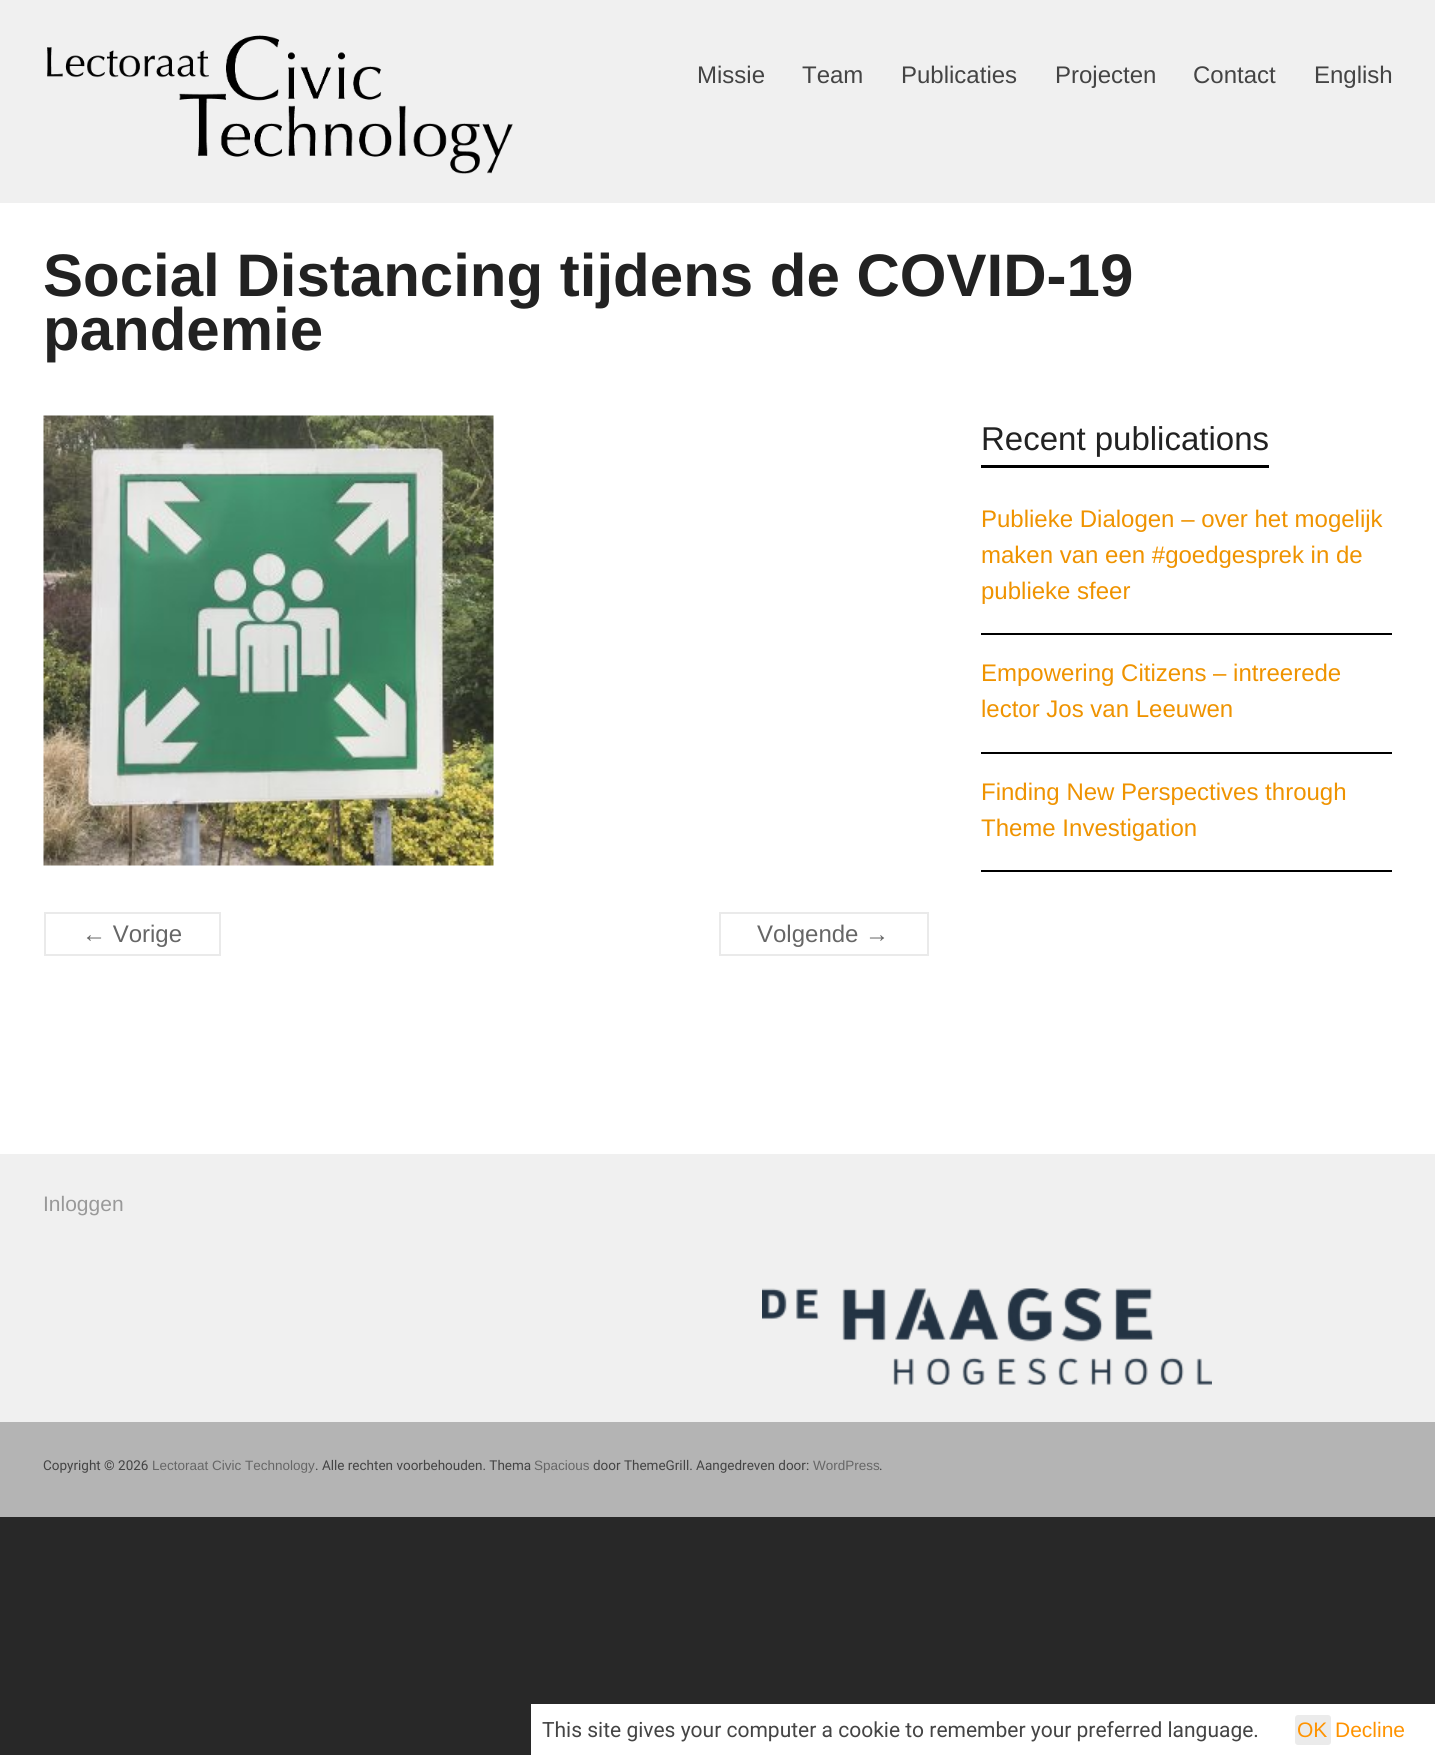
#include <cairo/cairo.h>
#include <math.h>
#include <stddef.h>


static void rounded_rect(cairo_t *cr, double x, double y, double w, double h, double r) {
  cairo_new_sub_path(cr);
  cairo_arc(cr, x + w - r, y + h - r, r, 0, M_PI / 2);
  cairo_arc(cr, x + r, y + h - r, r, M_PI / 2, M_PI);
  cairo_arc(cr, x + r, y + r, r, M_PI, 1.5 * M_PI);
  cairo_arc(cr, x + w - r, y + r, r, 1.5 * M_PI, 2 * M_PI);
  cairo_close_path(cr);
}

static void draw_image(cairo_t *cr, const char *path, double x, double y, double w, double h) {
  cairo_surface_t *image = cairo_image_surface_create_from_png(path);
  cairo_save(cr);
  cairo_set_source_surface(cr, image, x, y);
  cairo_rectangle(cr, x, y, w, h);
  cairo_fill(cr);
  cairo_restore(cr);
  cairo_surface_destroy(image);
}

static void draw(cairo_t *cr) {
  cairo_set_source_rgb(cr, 40 / 255.0, 40 / 255.0, 40 / 255.0);
  cairo_paint(cr);
  cairo_set_source_rgb(cr, 1, 1, 1);
  cairo_rectangle(cr, 0, 203, 1435, 951);
  cairo_fill(cr);
  cairo_set_source_rgb(cr, 240 / 255.0, 240 / 255.0, 240 / 255.0);
  cairo_rectangle(cr, 0, 0, 1435, 203);
  cairo_fill(cr);
  draw_image(cr, "images/1.png", 47, 35, 466, 139);
  cairo_set_source_rgb(cr, 0, 0, 0);
  cairo_rectangle(cr, 981, 465, 288, 3);
  cairo_fill(cr);
  cairo_rectangle(cr, 981, 633, 411, 2);
  cairo_fill(cr);
  cairo_rectangle(cr, 981, 752, 411, 2);
  cairo_fill(cr);
  cairo_rectangle(cr, 981, 870, 411, 2);
  cairo_fill(cr);
  draw_image(cr, "images/2.png", 43, 415, 451, 451);
  cairo_rectangle(cr, 45, 913, 175, 42);
  cairo_set_source_rgb(cr, 234 / 255.0, 234 / 255.0, 234 / 255.0);
  cairo_stroke(cr);
  cairo_rectangle(cr, 720, 913, 208, 42);
  cairo_stroke(cr);
  cairo_set_source_rgb(cr, 240 / 255.0, 240 / 255.0, 240 / 255.0);
  cairo_rectangle(cr, 0, 1154, 1435, 268);
  cairo_fill(cr);
  draw_image(cr, "images/3.png", 762, 1288, 450, 97);
  cairo_set_source_rgb(cr, 180 / 255.0, 180 / 255.0, 180 / 255.0);
  cairo_rectangle(cr, 0, 1422, 1435, 95);
  cairo_fill(cr);
  cairo_set_source_rgb(cr, 1, 1, 1);
  cairo_rectangle(cr, 531, 1704, 904, 51);
  cairo_fill(cr);
  cairo_set_source_rgb(cr, 235 / 255.0, 235 / 255.0, 235 / 255.0);
  rounded_rect(cr, 1295, 1715, 36, 30, 3);
  cairo_fill(cr);
  cairo_select_font_face(cr, "Liberation Sans", CAIRO_FONT_SLANT_NORMAL, CAIRO_FONT_WEIGHT_NORMAL);
  cairo_set_font_size(cr, 24);
  cairo_set_source_rgb(cr, 68 / 255.0, 68 / 255.0, 68 / 255.0);
  cairo_move_to(cr, 697, 83);
  cairo_show_text(cr, "Missie");
  cairo_move_to(cr, 802, 83);
  cairo_show_text(cr, "Team");
  cairo_move_to(cr, 901, 83);
  cairo_show_text(cr, "Publicaties");
  cairo_move_to(cr, 1055, 83);
  cairo_show_text(cr, "Projecten");
  cairo_move_to(cr, 1193, 83);
  cairo_show_text(cr, "Contact");
  cairo_move_to(cr, 1314, 83);
  cairo_show_text(cr, "English");
  cairo_select_font_face(cr, "Liberation Sans", CAIRO_FONT_SLANT_NORMAL, CAIRO_FONT_WEIGHT_BOLD);
  cairo_set_font_size(cr, 60);
  cairo_set_source_rgb(cr, 34 / 255.0, 34 / 255.0, 34 / 255.0);
  cairo_move_to(cr, 43, 296);
  cairo_show_text(cr, "Social Distancing tijdens de COVID-19");
  cairo_move_to(cr, 43, 350);
  cairo_show_text(cr, "pandemie");
  cairo_select_font_face(cr, "Liberation Sans", CAIRO_FONT_SLANT_NORMAL, CAIRO_FONT_WEIGHT_NORMAL);
  cairo_set_font_size(cr, 33);
  cairo_move_to(cr, 981, 450);
  cairo_show_text(cr, "Recent publications");
  cairo_set_font_size(cr, 24);
  cairo_set_source_rgb(cr, 239 / 255.0, 147 / 255.0, 0);
  cairo_move_to(cr, 981, 527);
  cairo_show_text(cr, "Publieke Dialogen – over het mogelijk");
  cairo_move_to(cr, 981, 563);
  cairo_show_text(cr, "maken van een #goedgesprek in de");
  cairo_move_to(cr, 981, 599);
  cairo_show_text(cr, "publieke sfeer");
  cairo_move_to(cr, 981, 681);
  cairo_show_text(cr, "Empowering Citizens – intreerede");
  cairo_move_to(cr, 981, 717);
  cairo_show_text(cr, "lector Jos van Leeuwen");
  cairo_move_to(cr, 981, 800);
  cairo_show_text(cr, "Finding New Perspectives through");
  cairo_move_to(cr, 981, 836);
  cairo_show_text(cr, "Theme Investigation");
  cairo_set_source_rgb(cr, 102 / 255.0, 102 / 255.0, 102 / 255.0);
  cairo_move_to(cr, 82, 942);
  cairo_show_text(cr, "← Vorige");
  cairo_move_to(cr, 757, 942);
  cairo_show_text(cr, "Volgende →");
  cairo_set_font_size(cr, 21);
  cairo_set_source_rgb(cr, 153 / 255.0, 153 / 255.0, 153 / 255.0);
  cairo_move_to(cr, 43, 1211);
  cairo_show_text(cr, "Inloggen");
  cairo_select_font_face(cr, "Roboto", CAIRO_FONT_SLANT_NORMAL, CAIRO_FONT_WEIGHT_NORMAL);
  cairo_set_font_size(cr, 13.5);
  cairo_set_source_rgb(cr, 68 / 255.0, 68 / 255.0, 68 / 255.0);
  cairo_move_to(cr, 43, 1470);
  cairo_show_text(cr, "Copyright © 2026");
  cairo_select_font_face(cr, "Liberation Sans", CAIRO_FONT_SLANT_NORMAL, CAIRO_FONT_WEIGHT_NORMAL);
  cairo_set_source_rgb(cr, 102 / 255.0, 102 / 255.0, 102 / 255.0);
  cairo_move_to(cr, 152, 1470);
  cairo_show_text(cr, "Lectoraat Civic Technology");
  cairo_select_font_face(cr, "Roboto", CAIRO_FONT_SLANT_NORMAL, CAIRO_FONT_WEIGHT_NORMAL);
  cairo_set_source_rgb(cr, 68 / 255.0, 68 / 255.0, 68 / 255.0);
  cairo_move_to(cr, 315, 1470);
  cairo_show_text(cr, ". Alle rechten voorbehouden. Thema");
  cairo_select_font_face(cr, "Liberation Sans", CAIRO_FONT_SLANT_NORMAL, CAIRO_FONT_WEIGHT_NORMAL);
  cairo_set_source_rgb(cr, 102 / 255.0, 102 / 255.0, 102 / 255.0);
  cairo_move_to(cr, 534, 1470);
  cairo_show_text(cr, "Spacious");
  cairo_select_font_face(cr, "Roboto", CAIRO_FONT_SLANT_NORMAL, CAIRO_FONT_WEIGHT_NORMAL);
  cairo_set_source_rgb(cr, 68 / 255.0, 68 / 255.0, 68 / 255.0);
  cairo_move_to(cr, 593, 1470);
  cairo_show_text(cr, "door ThemeGrill. Aangedreven door:");
  cairo_select_font_face(cr, "Liberation Sans", CAIRO_FONT_SLANT_NORMAL, CAIRO_FONT_WEIGHT_NORMAL);
  cairo_set_source_rgb(cr, 102 / 255.0, 102 / 255.0, 102 / 255.0);
  cairo_move_to(cr, 813, 1470);
  cairo_show_text(cr, "WordPress");
  cairo_select_font_face(cr, "Roboto", CAIRO_FONT_SLANT_NORMAL, CAIRO_FONT_WEIGHT_NORMAL);
  cairo_set_source_rgb(cr, 68 / 255.0, 68 / 255.0, 68 / 255.0);
  cairo_move_to(cr, 879, 1470);
  cairo_show_text(cr, ".");
  cairo_set_font_size(cr, 21);
  cairo_move_to(cr, 542, 1737);
  cairo_show_text(cr, "This site gives your computer a cookie to remember your preferred language.");
  cairo_select_font_face(cr, "Liberation Sans", CAIRO_FONT_SLANT_NORMAL, CAIRO_FONT_WEIGHT_NORMAL);
  cairo_set_source_rgb(cr, 1, 147 / 255.0, 0);
  cairo_move_to(cr, 1297, 1737);
  cairo_show_text(cr, "OK");
  cairo_move_to(cr, 1335, 1737);
  cairo_show_text(cr, "Decline");
}

int main(void) {
  cairo_surface_t *surface = cairo_image_surface_create(CAIRO_FORMAT_RGB24, 1435, 1755);
  cairo_t *cr = cairo_create(surface);
  cairo_font_options_t *options = cairo_font_options_create();
  cairo_font_options_set_hint_metrics(options, CAIRO_HINT_METRICS_OFF);
  cairo_font_options_set_hint_style(options, CAIRO_HINT_STYLE_NONE);
  cairo_set_font_options(cr, options);
  cairo_set_miter_limit(cr, 4);
  draw(cr);
  cairo_surface_write_to_png(surface, "out.png");
  cairo_font_options_destroy(options);
  cairo_destroy(cr);
  cairo_surface_destroy(surface);
  return 0;
}
